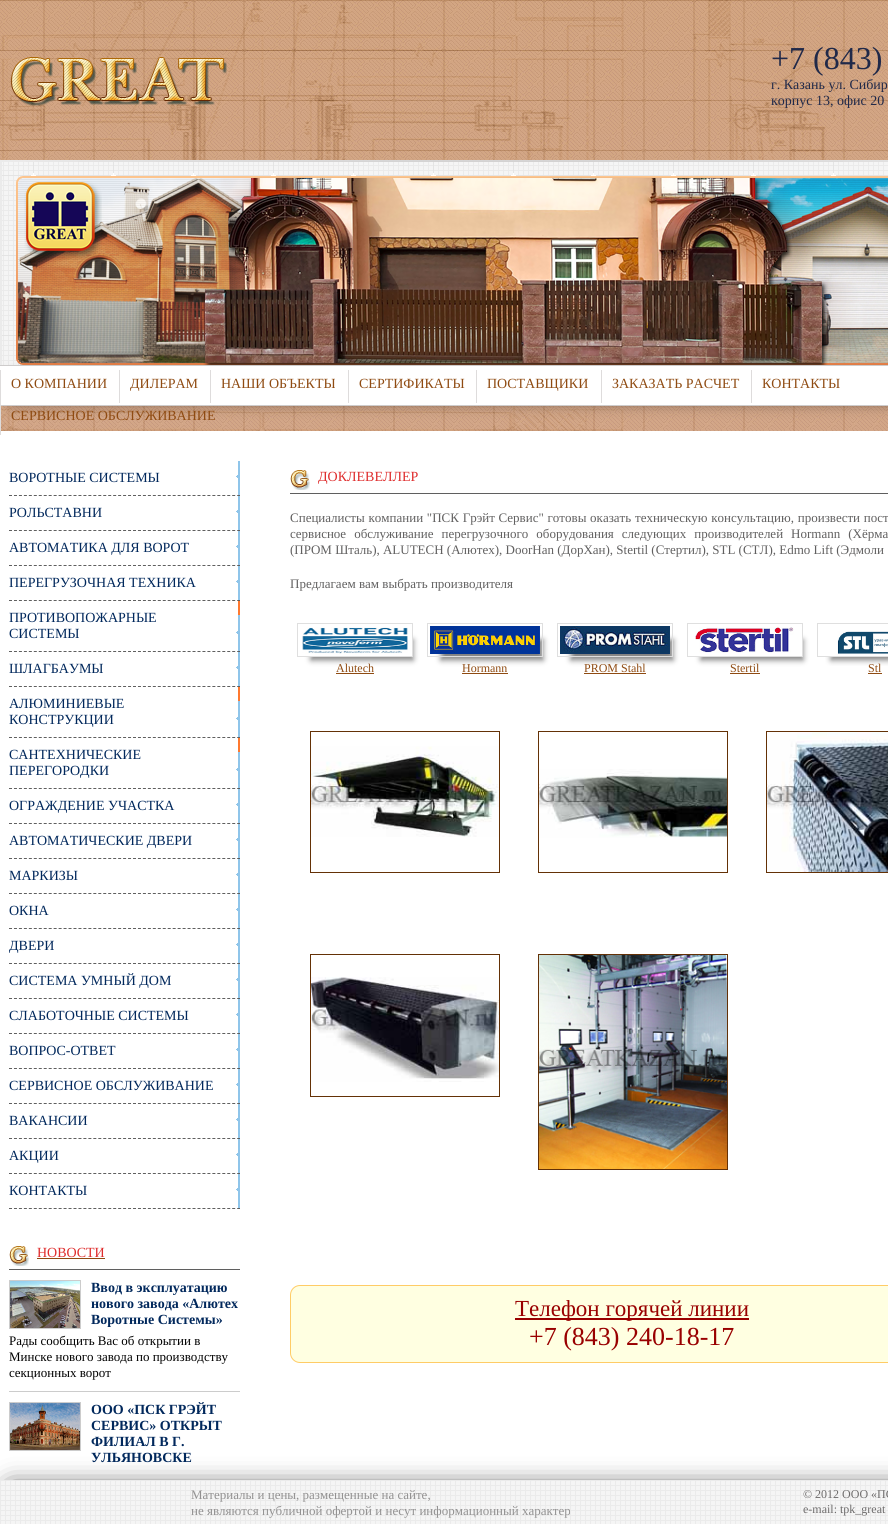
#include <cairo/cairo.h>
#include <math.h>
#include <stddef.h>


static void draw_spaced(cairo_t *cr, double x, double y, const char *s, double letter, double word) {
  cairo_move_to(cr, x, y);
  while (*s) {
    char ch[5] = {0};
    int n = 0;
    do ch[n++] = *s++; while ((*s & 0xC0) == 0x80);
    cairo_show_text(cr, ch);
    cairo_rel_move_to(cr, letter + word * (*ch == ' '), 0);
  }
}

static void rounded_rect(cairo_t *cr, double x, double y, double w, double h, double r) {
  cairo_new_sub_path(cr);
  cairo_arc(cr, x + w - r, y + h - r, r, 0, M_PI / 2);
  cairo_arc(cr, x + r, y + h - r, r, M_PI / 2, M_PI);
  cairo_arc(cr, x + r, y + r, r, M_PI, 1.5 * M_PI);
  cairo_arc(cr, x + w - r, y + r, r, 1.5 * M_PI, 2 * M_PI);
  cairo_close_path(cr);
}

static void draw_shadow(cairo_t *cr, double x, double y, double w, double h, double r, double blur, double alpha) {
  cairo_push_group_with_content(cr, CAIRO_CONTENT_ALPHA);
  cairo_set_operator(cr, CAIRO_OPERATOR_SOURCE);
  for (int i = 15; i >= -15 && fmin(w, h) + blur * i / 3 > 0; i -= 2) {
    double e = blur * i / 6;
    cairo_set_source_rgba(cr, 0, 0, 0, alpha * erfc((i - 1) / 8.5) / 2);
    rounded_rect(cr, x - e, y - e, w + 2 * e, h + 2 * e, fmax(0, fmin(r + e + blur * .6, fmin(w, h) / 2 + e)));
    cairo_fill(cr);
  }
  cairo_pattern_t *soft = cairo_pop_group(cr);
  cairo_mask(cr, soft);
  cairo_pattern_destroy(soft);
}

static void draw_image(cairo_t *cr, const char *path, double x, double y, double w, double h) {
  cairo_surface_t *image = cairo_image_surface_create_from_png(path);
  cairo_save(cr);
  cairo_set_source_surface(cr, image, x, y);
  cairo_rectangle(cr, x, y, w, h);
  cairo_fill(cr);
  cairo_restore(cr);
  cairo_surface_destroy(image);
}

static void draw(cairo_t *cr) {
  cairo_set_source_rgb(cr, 1, 1, 1);
  cairo_paint(cr);
  draw_image(cr, "images/1.png", 0, 0, 888, 431);
  draw_image(cr, "images/2.png", 0, 0, 888, 431);
  draw_image(cr, "images/3.png", 11, 57, 216, 49);
  draw_image(cr, "images/4.png", 0, 160, 888, 205);
  draw_image(cr, "images/5.png", 24, 181, 78, 79);
  cairo_set_source_rgb(cr, 0, 0, 0);
  draw_shadow(cr, 13, 382, 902, 15, 0, 9, 1);
  cairo_set_source_rgb(cr, 1, 1, 1);
  cairo_rectangle(cr, 0, 366, 888, 39);
  cairo_fill(cr);
  cairo_set_source_rgb(cr, 206 / 255.0, 204 / 255.0, 204 / 255.0);
  cairo_rectangle(cr, 0, 365, 888, 1);
  cairo_fill(cr);
  cairo_rectangle(cr, 0, 405, 888, 1);
  cairo_fill(cr);
  cairo_set_source_rgb(cr, 222 / 255.0, 220 / 255.0, 220 / 255.0);
  cairo_rectangle(cr, 0, 370, 1, 65);
  cairo_fill(cr);
  cairo_rectangle(cr, 119, 370, 1, 33);
  cairo_fill(cr);
  cairo_rectangle(cr, 210, 370, 1, 33);
  cairo_fill(cr);
  cairo_rectangle(cr, 348, 370, 1, 33);
  cairo_fill(cr);
  cairo_rectangle(cr, 476, 370, 1, 33);
  cairo_fill(cr);
  cairo_rectangle(cr, 601, 370, 1, 33);
  cairo_fill(cr);
  cairo_rectangle(cr, 751, 370, 1, 33);
  cairo_fill(cr);
  draw_image(cr, "images/6.png", 236, 461, 4, 34);
  cairo_new_path(cr);
  cairo_move_to(cr, 9, 495.5);
  cairo_line_to(cr, 240, 495.5);
  cairo_set_source_rgb(cr, 95 / 255.0, 95 / 255.0, 95 / 255.0);
  cairo_set_line_width(cr, 1);
  cairo_set_dash(cr, (double[]){3, 1.96}, 2, 0);
  cairo_stroke(cr);
  draw_image(cr, "images/6.png", 236, 496, 4, 34);
  cairo_new_path(cr);
  cairo_move_to(cr, 9, 530.5);
  cairo_line_to(cr, 240, 530.5);
  cairo_stroke(cr);
  draw_image(cr, "images/6.png", 236, 531, 4, 34);
  cairo_new_path(cr);
  cairo_move_to(cr, 9, 565.5);
  cairo_line_to(cr, 240, 565.5);
  cairo_stroke(cr);
  draw_image(cr, "images/6.png", 236, 566, 4, 34);
  cairo_new_path(cr);
  cairo_move_to(cr, 9, 600.5);
  cairo_line_to(cr, 240, 600.5);
  cairo_stroke(cr);
  draw_image(cr, "images/7.png", 236, 601, 4, 50);
  cairo_new_path(cr);
  cairo_move_to(cr, 9, 651.5);
  cairo_line_to(cr, 240, 651.5);
  cairo_stroke(cr);
  draw_image(cr, "images/6.png", 236, 652, 4, 34);
  cairo_new_path(cr);
  cairo_move_to(cr, 9, 686.5);
  cairo_line_to(cr, 240, 686.5);
  cairo_stroke(cr);
  draw_image(cr, "images/7.png", 236, 687, 4, 50);
  cairo_new_path(cr);
  cairo_move_to(cr, 9, 737.5);
  cairo_line_to(cr, 240, 737.5);
  cairo_stroke(cr);
  draw_image(cr, "images/7.png", 236, 738, 4, 50);
  cairo_new_path(cr);
  cairo_move_to(cr, 9, 788.5);
  cairo_line_to(cr, 240, 788.5);
  cairo_stroke(cr);
  draw_image(cr, "images/6.png", 236, 789, 4, 34);
  cairo_new_path(cr);
  cairo_move_to(cr, 9, 823.5);
  cairo_line_to(cr, 240, 823.5);
  cairo_stroke(cr);
  draw_image(cr, "images/6.png", 236, 824, 4, 34);
  cairo_new_path(cr);
  cairo_move_to(cr, 9, 858.5);
  cairo_line_to(cr, 240, 858.5);
  cairo_stroke(cr);
  draw_image(cr, "images/6.png", 236, 859, 4, 34);
  cairo_new_path(cr);
  cairo_move_to(cr, 9, 893.5);
  cairo_line_to(cr, 240, 893.5);
  cairo_stroke(cr);
  draw_image(cr, "images/6.png", 236, 894, 4, 34);
  cairo_new_path(cr);
  cairo_move_to(cr, 9, 928.5);
  cairo_line_to(cr, 240, 928.5);
  cairo_stroke(cr);
  draw_image(cr, "images/6.png", 236, 929, 4, 34);
  cairo_new_path(cr);
  cairo_move_to(cr, 9, 963.5);
  cairo_line_to(cr, 240, 963.5);
  cairo_stroke(cr);
  draw_image(cr, "images/6.png", 236, 964, 4, 34);
  cairo_new_path(cr);
  cairo_move_to(cr, 9, 998.5);
  cairo_line_to(cr, 240, 998.5);
  cairo_stroke(cr);
  draw_image(cr, "images/6.png", 236, 999, 4, 34);
  cairo_new_path(cr);
  cairo_move_to(cr, 9, 1033.5);
  cairo_line_to(cr, 240, 1033.5);
  cairo_stroke(cr);
  draw_image(cr, "images/6.png", 236, 1034, 4, 34);
  cairo_new_path(cr);
  cairo_move_to(cr, 9, 1068.5);
  cairo_line_to(cr, 240, 1068.5);
  cairo_stroke(cr);
  draw_image(cr, "images/6.png", 236, 1069, 4, 34);
  cairo_new_path(cr);
  cairo_move_to(cr, 9, 1103.5);
  cairo_line_to(cr, 240, 1103.5);
  cairo_stroke(cr);
  draw_image(cr, "images/6.png", 236, 1104, 4, 34);
  cairo_new_path(cr);
  cairo_move_to(cr, 9, 1138.5);
  cairo_line_to(cr, 240, 1138.5);
  cairo_stroke(cr);
  draw_image(cr, "images/6.png", 236, 1139, 4, 34);
  cairo_new_path(cr);
  cairo_move_to(cr, 9, 1173.5);
  cairo_line_to(cr, 240, 1173.5);
  cairo_stroke(cr);
  draw_image(cr, "images/6.png", 236, 1174, 4, 34);
  cairo_new_path(cr);
  cairo_move_to(cr, 9, 1208.5);
  cairo_line_to(cr, 240, 1208.5);
  cairo_stroke(cr);
  draw_image(cr, "images/8.png", 9, 1246, 20, 20);
  cairo_rectangle(cr, 9, 1269, 231, 1);
  cairo_fill(cr);
  cairo_set_source_rgb(cr, 143 / 255.0, 75 / 255.0, 18 / 255.0);
  cairo_rectangle(cr, 37, 1258, 68, 1);
  cairo_fill(cr);
  cairo_set_source_rgb(cr, 204 / 255.0, 204 / 255.0, 204 / 255.0);
  cairo_rectangle(cr, 9, 1391, 231, 1);
  cairo_fill(cr);
  cairo_rectangle(cr, 9.5, 1280.5, 71, 48);
  cairo_set_dash(cr, NULL, 0, 0);
  cairo_stroke(cr);
  draw_image(cr, "images/9.png", 10, 1281, 70, 47);
  cairo_rectangle(cr, 9.5, 1402.5, 71, 48);
  cairo_stroke(cr);
  draw_image(cr, "images/10.png", 10, 1403, 70, 47);
  draw_image(cr, "images/8.png", 290, 470, 20, 20);
  cairo_set_source_rgb(cr, 95 / 255.0, 95 / 255.0, 95 / 255.0);
  cairo_rectangle(cr, 290, 493, 598, 1);
  cairo_fill(cr);
  cairo_save(cr);
  cairo_set_fill_rule(cr, CAIRO_FILL_RULE_EVEN_ODD);
  cairo_new_path(cr);
  cairo_move_to(cr, 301, 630);
  cairo_line_to(cr, 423, 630);
  cairo_line_to(cr, 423, 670);
  cairo_line_to(cr, 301, 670);
  cairo_close_path(cr);
  cairo_move_to(cr, 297, 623);
  cairo_line_to(cr, 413, 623);
  cairo_line_to(cr, 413, 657);
  cairo_line_to(cr, 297, 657);
  cairo_close_path(cr);
  cairo_clip(cr);
  cairo_set_source_rgb(cr, 128 / 255.0, 128 / 255.0, 128 / 255.0);
  draw_shadow(cr, 311, 640, 102, 20, 0, 3, 1);
  cairo_restore(cr);
  cairo_rectangle(cr, 297.5, 623.5, 115, 33);
  cairo_set_source_rgb(cr, 223 / 255.0, 223 / 255.0, 223 / 255.0);
  cairo_stroke(cr);
  draw_image(cr, "images/11.png", 302, 627, 106, 27);
  cairo_set_source_rgb(cr, 143 / 255.0, 75 / 255.0, 18 / 255.0);
  cairo_rectangle(cr, 336, 673, 38, 1);
  cairo_fill(cr);
  cairo_set_source_rgb(cr, 128 / 255.0, 128 / 255.0, 128 / 255.0);
  draw_shadow(cr, 441, 640, 102, 20, 0, 3, 1);
  cairo_rectangle(cr, 427.5, 623.5, 115, 33);
  cairo_set_source_rgb(cr, 223 / 255.0, 223 / 255.0, 223 / 255.0);
  cairo_stroke(cr);
  draw_image(cr, "images/12.png", 430, 626, 110, 28);
  cairo_set_source_rgb(cr, 143 / 255.0, 75 / 255.0, 18 / 255.0);
  cairo_rectangle(cr, 462, 673, 46, 1);
  cairo_fill(cr);
  cairo_set_source_rgb(cr, 128 / 255.0, 128 / 255.0, 128 / 255.0);
  draw_shadow(cr, 571, 640, 102, 20, 0, 3, 1);
  cairo_rectangle(cr, 557.5, 623.5, 115, 33);
  cairo_set_source_rgb(cr, 223 / 255.0, 223 / 255.0, 223 / 255.0);
  cairo_stroke(cr);
  draw_image(cr, "images/13.png", 560, 626, 110, 28);
  cairo_set_source_rgb(cr, 143 / 255.0, 75 / 255.0, 18 / 255.0);
  cairo_rectangle(cr, 584, 673, 62, 1);
  cairo_fill(cr);
  cairo_save(cr);
  cairo_set_fill_rule(cr, CAIRO_FILL_RULE_EVEN_ODD);
  cairo_new_path(cr);
  cairo_move_to(cr, 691, 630);
  cairo_line_to(cr, 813, 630);
  cairo_line_to(cr, 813, 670);
  cairo_line_to(cr, 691, 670);
  cairo_close_path(cr);
  cairo_move_to(cr, 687, 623);
  cairo_line_to(cr, 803, 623);
  cairo_line_to(cr, 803, 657);
  cairo_line_to(cr, 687, 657);
  cairo_close_path(cr);
  cairo_clip(cr);
  cairo_set_source_rgb(cr, 128 / 255.0, 128 / 255.0, 128 / 255.0);
  draw_shadow(cr, 701, 640, 102, 20, 0, 3, 1);
  cairo_restore(cr);
  cairo_rectangle(cr, 687.5, 623.5, 115, 33);
  cairo_set_source_rgb(cr, 223 / 255.0, 223 / 255.0, 223 / 255.0);
  cairo_stroke(cr);
  draw_image(cr, "images/14.png", 695, 627, 99, 26);
  cairo_set_source_rgb(cr, 143 / 255.0, 75 / 255.0, 18 / 255.0);
  cairo_rectangle(cr, 730, 673, 30, 1);
  cairo_fill(cr);
  cairo_save(cr);
  cairo_rectangle(cr, 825, 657, 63, 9);
  cairo_clip(cr);
  cairo_set_source_rgb(cr, 128 / 255.0, 128 / 255.0, 128 / 255.0);
  draw_shadow(cr, 831, 640, 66, 20, 0, 3, 1);
  cairo_restore(cr);
  cairo_rectangle(cr, 817.5, 623.5, 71, 33);
  cairo_set_source_rgb(cr, 223 / 255.0, 223 / 255.0, 223 / 255.0);
  cairo_stroke(cr);
  draw_image(cr, "images/15.png", 837, 631, 51, 23);
  cairo_set_source_rgb(cr, 143 / 255.0, 75 / 255.0, 18 / 255.0);
  cairo_rectangle(cr, 868, 673, 14, 1);
  cairo_fill(cr);
  cairo_rectangle(cr, 310.5, 731.5, 189, 141);
  cairo_set_source_rgb(cr, 100 / 255.0, 49 / 255.0, 6 / 255.0);
  cairo_stroke(cr);
  draw_image(cr, "images/16.png", 311, 746, 188, 91);
  cairo_rectangle(cr, 538.5, 731.5, 189, 141);
  cairo_stroke(cr);
  draw_image(cr, "images/17.png", 539, 769, 188, 69);
  cairo_rectangle(cr, 766.5, 731.5, 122, 141);
  cairo_stroke(cr);
  draw_image(cr, "images/18.png", 767, 732, 121, 140);
  cairo_rectangle(cr, 310.5, 954.5, 189, 142);
  cairo_stroke(cr);
  draw_image(cr, "images/19.png", 311, 977, 188, 105);
  cairo_rectangle(cr, 538.5, 954.5, 189, 215);
  cairo_stroke(cr);
  draw_image(cr, "images/20.png", 539, 955, 188, 214);
  cairo_set_source_rgb(cr, 1, 1, 225 / 255.0);
  rounded_rect(cr, 290.5, 1285.5, 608, 77, 9.5);
  cairo_fill_preserve(cr);
  cairo_set_source_rgb(cr, 1, 204 / 255.0, 102 / 255.0);
  cairo_stroke(cr);
  cairo_set_source_rgb(cr, 153 / 255.0, 0, 0);
  cairo_rectangle(cr, 515, 1318, 234, 2);
  cairo_fill(cr);
  cairo_set_source_rgb(cr, 0, 0, 0);
  draw_shadow(cr, 11, 1490, 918, 24, 0, 13.5, 1);
  draw_image(cr, "images/21.png", 0, 1480, 888, 44);
  cairo_select_font_face(cr, "Liberation Serif", CAIRO_FONT_SLANT_NORMAL, CAIRO_FONT_WEIGHT_NORMAL);
  cairo_set_font_size(cr, 32);
  cairo_set_source_rgb(cr, 32 / 255.0, 41 / 255.0, 73 / 255.0);
  cairo_move_to(cr, 771, 69);
  cairo_show_text(cr, "+7 (843)");
  cairo_set_font_size(cr, 14);
  cairo_move_to(cr, 771, 89);
  cairo_show_text(cr, "г. Казань ул. Сибир");
  cairo_move_to(cr, 771, 105);
  cairo_show_text(cr, "корпус 13, офис 20");
  cairo_set_source_rgb(cr, 143 / 255.0, 75 / 255.0, 18 / 255.0);
  cairo_move_to(cr, 11, 388);
  cairo_show_text(cr, "О КОМПАНИИ");
  cairo_move_to(cr, 130, 388);
  cairo_show_text(cr, "ДИЛЕРАМ");
  cairo_move_to(cr, 221, 388);
  cairo_show_text(cr, "НАШИ ОБЪЕКТЫ");
  cairo_move_to(cr, 359, 388);
  cairo_show_text(cr, "СЕРТИФИКАТЫ");
  cairo_move_to(cr, 487, 388);
  cairo_show_text(cr, "ПОСТАВЩИКИ");
  cairo_move_to(cr, 612, 388);
  cairo_show_text(cr, "ЗАКАЗАТЬ РАСЧЕТ");
  cairo_move_to(cr, 762, 388);
  cairo_show_text(cr, "КОНТАКТЫ");
  cairo_move_to(cr, 11, 420);
  cairo_show_text(cr, "СЕРВИСНОЕ ОБСЛУЖИВАНИЕ");
  cairo_set_source_rgb(cr, 1 / 255.0, 40 / 255.0, 92 / 255.0);
  cairo_move_to(cr, 9, 482);
  cairo_show_text(cr, "ВОРОТНЫЕ СИСТЕМЫ");
  cairo_move_to(cr, 9, 517);
  cairo_show_text(cr, "РОЛЬСТАВНИ");
  cairo_move_to(cr, 9, 552);
  cairo_show_text(cr, "АВТОМАТИКА ДЛЯ ВОРОТ");
  cairo_move_to(cr, 9, 587);
  cairo_show_text(cr, "ПЕРЕГРУЗОЧНАЯ ТЕХНИКА");
  cairo_move_to(cr, 9, 622);
  cairo_show_text(cr, "ПРОТИВОПОЖАРНЫЕ");
  cairo_move_to(cr, 9, 638);
  cairo_show_text(cr, "СИСТЕМЫ");
  cairo_move_to(cr, 9, 673);
  cairo_show_text(cr, "ШЛАГБАУМЫ");
  cairo_move_to(cr, 9, 708);
  cairo_show_text(cr, "АЛЮМИНИЕВЫЕ");
  cairo_move_to(cr, 9, 724);
  cairo_show_text(cr, "КОНСТРУКЦИИ");
  cairo_move_to(cr, 9, 759);
  cairo_show_text(cr, "САНТЕХНИЧЕСКИЕ");
  cairo_move_to(cr, 9, 775);
  cairo_show_text(cr, "ПЕРЕГОРОДКИ");
  cairo_move_to(cr, 9, 810);
  cairo_show_text(cr, "ОГРАЖДЕНИЕ УЧАСТКА");
  cairo_move_to(cr, 9, 845);
  cairo_show_text(cr, "АВТОМАТИЧЕСКИЕ ДВЕРИ");
  cairo_move_to(cr, 9, 880);
  cairo_show_text(cr, "МАРКИЗЫ");
  cairo_move_to(cr, 9, 915);
  cairo_show_text(cr, "ОКНА");
  cairo_move_to(cr, 9, 950);
  cairo_show_text(cr, "ДВЕРИ");
  cairo_move_to(cr, 9, 985);
  cairo_show_text(cr, "СИСТЕМА УМНЫЙ ДОМ");
  cairo_move_to(cr, 9, 1020);
  cairo_show_text(cr, "СЛАБОТОЧНЫЕ СИСТЕМЫ");
  cairo_move_to(cr, 9, 1055);
  cairo_show_text(cr, "ВОПРОС-ОТВЕТ");
  cairo_move_to(cr, 9, 1090);
  cairo_show_text(cr, "СЕРВИСНОЕ ОБСЛУЖИВАНИЕ");
  cairo_move_to(cr, 9, 1125);
  cairo_show_text(cr, "ВАКАНСИИ");
  cairo_move_to(cr, 9, 1160);
  cairo_show_text(cr, "АКЦИИ");
  cairo_move_to(cr, 9, 1195);
  cairo_show_text(cr, "КОНТАКТЫ");
  cairo_set_source_rgb(cr, 223 / 255.0, 45 / 255.0, 45 / 255.0);
  cairo_move_to(cr, 37, 1257);
  cairo_show_text(cr, "НОВОСТИ");
  cairo_select_font_face(cr, "Liberation Serif", CAIRO_FONT_SLANT_NORMAL, CAIRO_FONT_WEIGHT_BOLD);
  cairo_set_source_rgb(cr, 1 / 255.0, 40 / 255.0, 92 / 255.0);
  cairo_move_to(cr, 91, 1292);
  cairo_show_text(cr, "Ввод в эксплуатацию");
  cairo_move_to(cr, 91, 1308);
  cairo_show_text(cr, "нового завода «Алютех");
  cairo_move_to(cr, 91, 1324);
  cairo_show_text(cr, "Воротные Системы»");
  cairo_select_font_face(cr, "Liberation Serif", CAIRO_FONT_SLANT_NORMAL, CAIRO_FONT_WEIGHT_NORMAL);
  cairo_set_font_size(cr, 13);
  cairo_set_source_rgb(cr, 0, 0, 0);
  cairo_move_to(cr, 9, 1345);
  cairo_show_text(cr, "Рады сообщить Вас об открытии в");
  cairo_move_to(cr, 9, 1361);
  cairo_show_text(cr, "Минске нового завода по производству");
  cairo_move_to(cr, 9, 1377);
  cairo_show_text(cr, "секционных ворот");
  cairo_select_font_face(cr, "Liberation Serif", CAIRO_FONT_SLANT_NORMAL, CAIRO_FONT_WEIGHT_BOLD);
  cairo_set_font_size(cr, 14);
  cairo_set_source_rgb(cr, 1 / 255.0, 40 / 255.0, 92 / 255.0);
  cairo_move_to(cr, 91, 1414);
  cairo_show_text(cr, "ООО «ПСК ГРЭЙТ");
  cairo_move_to(cr, 91, 1430);
  cairo_show_text(cr, "СЕРВИС» ОТКРЫТ");
  cairo_move_to(cr, 91, 1446);
  cairo_show_text(cr, "ФИЛИАЛ В Г.");
  cairo_move_to(cr, 91, 1462);
  cairo_show_text(cr, "УЛЬЯНОВСКЕ");
  cairo_select_font_face(cr, "Liberation Serif", CAIRO_FONT_SLANT_NORMAL, CAIRO_FONT_WEIGHT_NORMAL);
  cairo_set_source_rgb(cr, 223 / 255.0, 45 / 255.0, 45 / 255.0);
  cairo_move_to(cr, 318, 481);
  cairo_show_text(cr, "ДОКЛЕВЕЛЛЕР");
  cairo_set_font_size(cr, 13);
  cairo_set_source_rgb(cr, 97 / 255.0, 96 / 255.0, 96 / 255.0);
  draw_spaced(cr, 290, 522, "Специалисты компании \"ПСК Грэйт Сервис\" готовы оказать техническую консультацию, произвести пост", 0, 0.5);
  draw_spaced(cr, 290, 538, "сервисное обслуживание перегрузочного оборудования следующих производителей Hormann (Хёрма", 0, 4.75);
  cairo_move_to(cr, 290, 554);
  cairo_show_text(cr, "(ПРОМ Шталь), ALUTECH (Алютех), DoorHan (ДорХан), Stertil (Стертил), STL (СТЛ), Edmo Lift (Эдмоли");
  cairo_move_to(cr, 290, 588);
  cairo_show_text(cr, "Предлагаем вам выбрать производителя");
  cairo_set_font_size(cr, 12);
  cairo_set_source_rgb(cr, 143 / 255.0, 75 / 255.0, 18 / 255.0);
  cairo_move_to(cr, 336, 672);
  cairo_show_text(cr, "Alutech");
  cairo_move_to(cr, 462, 672);
  cairo_show_text(cr, "Hormann");
  cairo_move_to(cr, 584, 672);
  cairo_show_text(cr, "PROM Stahl");
  cairo_move_to(cr, 730, 672);
  cairo_show_text(cr, "Stertil");
  cairo_move_to(cr, 868, 672);
  cairo_show_text(cr, "Stl");
  cairo_set_font_size(cr, 23);
  cairo_set_source_rgb(cr, 153 / 255.0, 0, 0);
  cairo_move_to(cr, 515, 1316);
  cairo_show_text(cr, "Телефон горячей линии");
  cairo_set_font_size(cr, 26);
  cairo_move_to(cr, 529, 1345);
  cairo_show_text(cr, "+7 (843) 240-18-17");
  cairo_set_font_size(cr, 13);
  cairo_set_source_rgb(cr, 146 / 255.0, 145 / 255.0, 145 / 255.0);
  cairo_move_to(cr, 191, 1499);
  cairo_show_text(cr, "Материалы и цены, размещенные на сайте,");
  cairo_move_to(cr, 191, 1515);
  cairo_show_text(cr, "не являются публичной офертой и несут информационный характер");
  cairo_set_font_size(cr, 12);
  cairo_set_source_rgb(cr, 109 / 255.0, 107 / 255.0, 107 / 255.0);
  cairo_move_to(cr, 803, 1498);
  cairo_show_text(cr, "© 2012 ООО «ПС");
  cairo_move_to(cr, 803, 1513);
  cairo_show_text(cr, "e-mail: tpk_great");
}

int main(void) {
  cairo_surface_t *surface = cairo_image_surface_create(CAIRO_FORMAT_RGB24, 888, 1524);
  cairo_t *cr = cairo_create(surface);
  cairo_font_options_t *options = cairo_font_options_create();
  cairo_font_options_set_hint_metrics(options, CAIRO_HINT_METRICS_OFF);
  cairo_font_options_set_hint_style(options, CAIRO_HINT_STYLE_NONE);
  cairo_set_font_options(cr, options);
  cairo_set_miter_limit(cr, 4);
  draw(cr);
  cairo_surface_write_to_png(surface, "out.png");
  cairo_font_options_destroy(options);
  cairo_destroy(cr);
  cairo_surface_destroy(surface);
  return 0;
}
